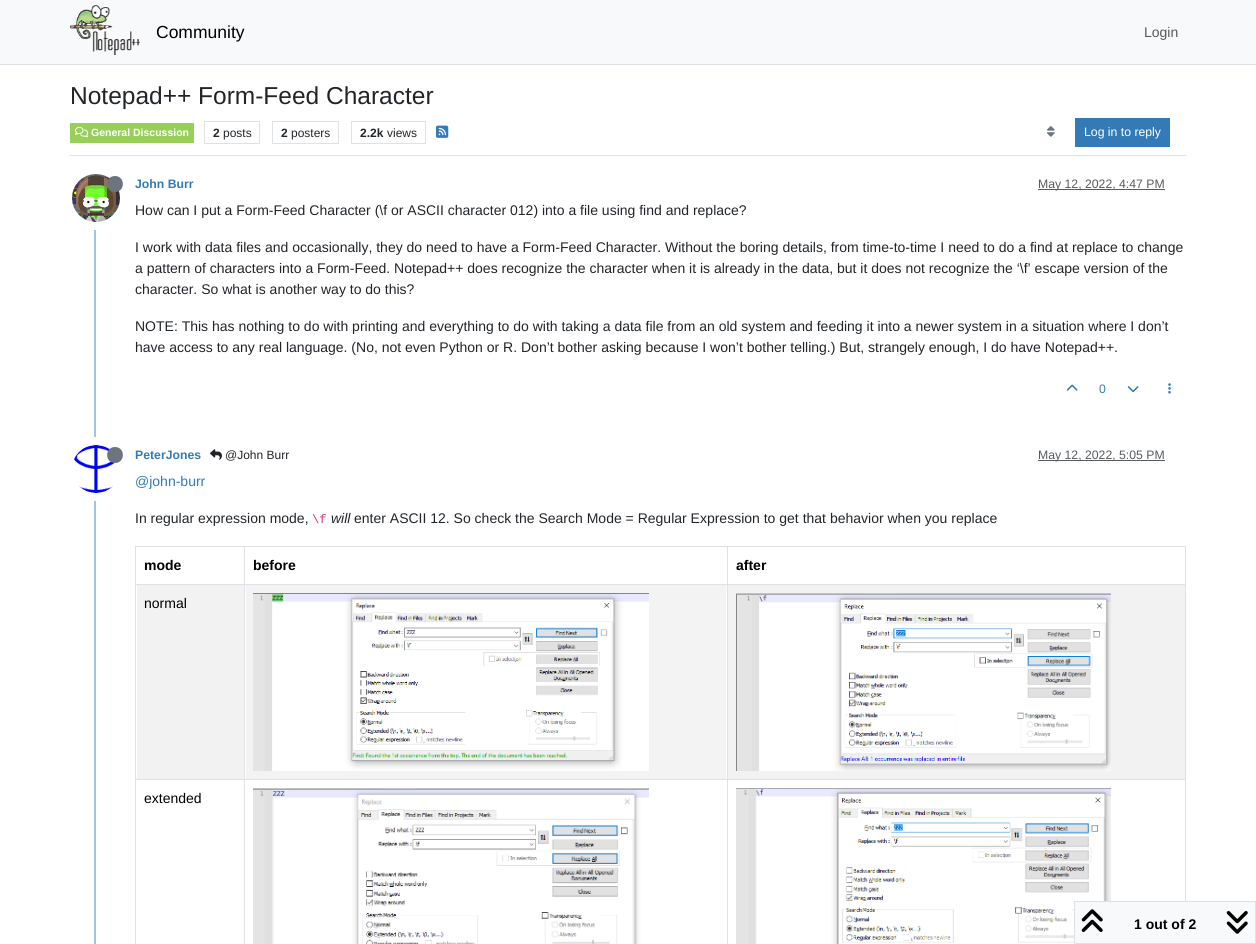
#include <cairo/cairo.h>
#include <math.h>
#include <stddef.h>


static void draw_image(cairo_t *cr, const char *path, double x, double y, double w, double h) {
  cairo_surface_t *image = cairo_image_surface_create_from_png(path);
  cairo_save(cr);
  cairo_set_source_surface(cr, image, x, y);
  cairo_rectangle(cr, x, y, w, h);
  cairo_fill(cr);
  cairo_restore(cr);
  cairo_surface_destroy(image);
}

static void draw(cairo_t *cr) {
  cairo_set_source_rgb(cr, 1, 1, 1);
  cairo_paint(cr);
  cairo_set_source_rgb(cr, 248 / 255.0, 249 / 255.0, 250 / 255.0);
  cairo_rectangle(cr, 0, 0, 1256, 64);
  cairo_fill(cr);
  cairo_set_source_rgb(cr, 222 / 255.0, 226 / 255.0, 230 / 255.0);
  cairo_rectangle(cr, 0, 64, 1256, 1);
  cairo_fill(cr);
  draw_image(cr, "images/1.png", 70, 5, 70, 50);
  cairo_rectangle(cr, 70, 155, 1116, 1);
  cairo_fill(cr);
  cairo_set_source_rgb(cr, 152 / 255.0, 207 / 255.0, 89 / 255.0);
  cairo_rectangle(cr, 70, 123, 124, 20);
  cairo_fill(cr);
  draw_image(cr, "images/2.png", 75, 126, 14, 12);
  cairo_rectangle(cr, 204.5, 121.5, 55, 22);
  cairo_set_source_rgb(cr, 222 / 255.0, 226 / 255.0, 230 / 255.0);
  cairo_set_line_width(cr, 1);
  cairo_stroke(cr);
  cairo_rectangle(cr, 272.5, 121.5, 66, 22);
  cairo_stroke(cr);
  cairo_rectangle(cr, 351.5, 121.5, 74, 22);
  cairo_stroke(cr);
  draw_image(cr, "images/3.png", 436, 125, 13, 13);
  draw_image(cr, "images/4.png", 1047, 126, 8, 11);
  cairo_set_source_rgb(cr, 51 / 255.0, 122 / 255.0, 183 / 255.0);
  cairo_rectangle(cr, 1075, 118, 95, 29);
  cairo_fill(cr);
  cairo_set_source_rgb(cr, 160 / 255.0, 196 / 255.0, 228 / 255.0);
  cairo_rectangle(cr, 94, 172, 2, 772);
  cairo_fill(cr);
  cairo_arc(cr, 96, 198, 28, 0, 2 * M_PI);
  cairo_set_source_rgb(cr, 1, 1, 1);
  cairo_set_line_width(cr, 8);
  cairo_stroke(cr);
  draw_image(cr, "images/5.png", 72, 174, 48, 48);
  cairo_set_source_rgb(cr, 108 / 255.0, 117 / 255.0, 125 / 255.0);
  cairo_new_path(cr);
  cairo_move_to(cr, 115, 192);
  cairo_curve_to(cr, 125.5, 192, 125.5, 176, 115, 176);
  cairo_curve_to(cr, 104.5, 176, 104.5, 192, 115, 192);
  cairo_close_path(cr);
  cairo_fill(cr);
  cairo_set_source_rgb(cr, 89 / 255.0, 92 / 255.0, 95 / 255.0);
  cairo_rectangle(cr, 1038, 189, 127, 1);
  cairo_fill(cr);
  draw_image(cr, "images/6.png", 1066, 384, 12, 7);
  draw_image(cr, "images/7.png", 1127, 386, 12, 7);
  draw_image(cr, "images/8.png", 1168, 383, 3, 11);
  cairo_arc(cr, 96, 469, 28, 0, 2 * M_PI);
  cairo_set_source_rgb(cr, 1, 1, 1);
  cairo_stroke(cr);
  draw_image(cr, "images/9.png", 74, 445, 42, 48);
  cairo_set_source_rgb(cr, 108 / 255.0, 117 / 255.0, 125 / 255.0);
  cairo_new_path(cr);
  cairo_move_to(cr, 115, 463);
  cairo_curve_to(cr, 125.5, 463, 125.5, 447, 115, 447);
  cairo_curve_to(cr, 104.5, 447, 104.5, 463, 115, 463);
  cairo_close_path(cr);
  cairo_fill(cr);
  draw_image(cr, "images/10.png", 210, 449, 12, 11);
  cairo_set_source_rgb(cr, 89 / 255.0, 92 / 255.0, 95 / 255.0);
  cairo_rectangle(cr, 1038, 460, 127, 1);
  cairo_fill(cr);
  cairo_set_source_rgb(cr, 222 / 255.0, 226 / 255.0, 230 / 255.0);
  cairo_rectangle(cr, 135, 546, 1051, 1);
  cairo_fill(cr);
  cairo_rectangle(cr, 135, 584, 1051, 1);
  cairo_fill(cr);
  cairo_set_source_rgb(cr, 242 / 255.0, 242 / 255.0, 242 / 255.0);
  cairo_rectangle(cr, 137, 585, 107, 194);
  cairo_fill(cr);
  cairo_set_source_rgb(cr, 243 / 255.0, 243 / 255.0, 243 / 255.0);
  cairo_rectangle(cr, 246, 585, 480, 194);
  cairo_fill(cr);
  draw_image(cr, "images/11.png", 253, 593, 396, 178);
  cairo_set_source_rgb(cr, 242 / 255.0, 242 / 255.0, 242 / 255.0);
  cairo_rectangle(cr, 728, 585, 457, 194);
  cairo_fill(cr);
  draw_image(cr, "images/12.png", 736, 593, 375, 178);
  cairo_set_source_rgb(cr, 222 / 255.0, 226 / 255.0, 230 / 255.0);
  cairo_rectangle(cr, 135, 779, 1051, 1);
  cairo_fill(cr);
  cairo_rectangle(cr, 135, 546, 1, 398);
  cairo_fill(cr);
  cairo_rectangle(cr, 244, 546, 1, 398);
  cairo_fill(cr);
  draw_image(cr, "images/13.png", 253, 788, 396, 156);
  cairo_rectangle(cr, 1185, 546, 1, 355);
  cairo_fill(cr);
  cairo_rectangle(cr, 727, 546, 1, 398);
  cairo_fill(cr);
  draw_image(cr, "images/14.png", 736, 788, 375, 156);
  cairo_set_source_rgb(cr, 248 / 255.0, 249 / 255.0, 250 / 255.0);
  cairo_rectangle(cr, 1074.5, 901.5, 181, 42);
  cairo_fill_preserve(cr);
  cairo_set_source_rgb(cr, 222 / 255.0, 226 / 255.0, 230 / 255.0);
  cairo_set_line_width(cr, 1);
  cairo_stroke(cr);
  draw_image(cr, "images/15.png", 1081, 909, 22, 23);
  draw_image(cr, "images/16.png", 1226, 911, 22, 23);
  cairo_select_font_face(cr, "Liberation Sans", CAIRO_FONT_SLANT_NORMAL, CAIRO_FONT_WEIGHT_NORMAL);
  cairo_set_font_size(cr, 17.5);
  cairo_set_source_rgb(cr, 0, 0, 0);
  cairo_move_to(cr, 156, 38);
  cairo_show_text(cr, "Community");
  cairo_set_font_size(cr, 14);
  cairo_set_source_rgb(cr, 87 / 255.0, 87 / 255.0, 88 / 255.0);
  cairo_move_to(cr, 1144, 37);
  cairo_show_text(cr, "Login");
  cairo_set_font_size(cr, 24.5);
  cairo_set_source_rgb(cr, 33 / 255.0, 37 / 255.0, 41 / 255.0);
  cairo_move_to(cr, 70, 104);
  cairo_show_text(cr, "Notepad++ Form-Feed Character");
  cairo_select_font_face(cr, "Liberation Sans", CAIRO_FONT_SLANT_NORMAL, CAIRO_FONT_WEIGHT_BOLD);
  cairo_set_font_size(cr, 10.5);
  cairo_set_source_rgb(cr, 1, 1, 1);
  cairo_move_to(cr, 91, 136);
  cairo_show_text(cr, "General Discussion");
  cairo_set_font_size(cr, 12);
  cairo_set_source_rgb(cr, 33 / 255.0, 37 / 255.0, 41 / 255.0);
  cairo_move_to(cr, 213, 137);
  cairo_show_text(cr, "2");
  cairo_select_font_face(cr, "Liberation Sans", CAIRO_FONT_SLANT_NORMAL, CAIRO_FONT_WEIGHT_NORMAL);
  cairo_move_to(cr, 223, 137);
  cairo_show_text(cr, "posts");
  cairo_select_font_face(cr, "Liberation Sans", CAIRO_FONT_SLANT_NORMAL, CAIRO_FONT_WEIGHT_BOLD);
  cairo_move_to(cr, 281, 137);
  cairo_show_text(cr, "2");
  cairo_select_font_face(cr, "Liberation Sans", CAIRO_FONT_SLANT_NORMAL, CAIRO_FONT_WEIGHT_NORMAL);
  cairo_move_to(cr, 291, 137);
  cairo_show_text(cr, "posters");
  cairo_select_font_face(cr, "Liberation Sans", CAIRO_FONT_SLANT_NORMAL, CAIRO_FONT_WEIGHT_BOLD);
  cairo_move_to(cr, 360, 137);
  cairo_show_text(cr, "2.2k");
  cairo_select_font_face(cr, "Liberation Sans", CAIRO_FONT_SLANT_NORMAL, CAIRO_FONT_WEIGHT_NORMAL);
  cairo_move_to(cr, 387, 137);
  cairo_show_text(cr, "views");
  cairo_set_font_size(cr, 12.25);
  cairo_set_source_rgb(cr, 1, 1, 1);
  cairo_move_to(cr, 1084, 136);
  cairo_show_text(cr, "Log in to reply");
  cairo_select_font_face(cr, "Liberation Sans", CAIRO_FONT_SLANT_NORMAL, CAIRO_FONT_WEIGHT_BOLD);
  cairo_set_source_rgb(cr, 51 / 255.0, 122 / 255.0, 183 / 255.0);
  cairo_move_to(cr, 135, 188);
  cairo_show_text(cr, "John Burr");
  cairo_select_font_face(cr, "Liberation Sans", CAIRO_FONT_SLANT_NORMAL, CAIRO_FONT_WEIGHT_NORMAL);
  cairo_set_source_rgb(cr, 88 / 255.0, 91 / 255.0, 94 / 255.0);
  cairo_move_to(cr, 1038, 188);
  cairo_show_text(cr, "May 12, 2022, 4:47 PM");
  cairo_set_font_size(cr, 14);
  cairo_set_source_rgb(cr, 33 / 255.0, 37 / 255.0, 41 / 255.0);
  cairo_move_to(cr, 135, 215);
  cairo_show_text(cr, "How can I put a Form-Feed Character (\\f or ASCII character 012) into a file using find and replace?");
  cairo_move_to(cr, 135, 252);
  cairo_show_text(cr, "I work with data files and occasionally, they do need to have a Form-Feed Character. Without the boring details, from time-to-time I need to do a find at replace to change");
  cairo_move_to(cr, 135, 273);
  cairo_show_text(cr, "a pattern of characters into a Form-Feed. Notepad++ does recognize the character when it is already in the data, but it does not recognize the ‘\\f’ escape version of the");
  cairo_move_to(cr, 135, 294);
  cairo_show_text(cr, "character. So what is another way to do this?");
  cairo_move_to(cr, 135, 331);
  cairo_show_text(cr, "NOTE: This has nothing to do with printing and everything to do with taking a data file from an old system and feeding it into a newer system in a situation where I don’t");
  cairo_move_to(cr, 135, 352);
  cairo_show_text(cr, "have access to any real language. (No, not even Python or R. Don’t bother asking because I won’t bother telling.) But, strangely enough, I do have Notepad++.");
  cairo_set_font_size(cr, 12.25);
  cairo_set_source_rgb(cr, 51 / 255.0, 122 / 255.0, 183 / 255.0);
  cairo_move_to(cr, 1099, 393);
  cairo_show_text(cr, "0");
  cairo_select_font_face(cr, "Liberation Sans", CAIRO_FONT_SLANT_NORMAL, CAIRO_FONT_WEIGHT_BOLD);
  cairo_move_to(cr, 135, 459);
  cairo_show_text(cr, "PeterJones");
  cairo_select_font_face(cr, "Liberation Sans", CAIRO_FONT_SLANT_NORMAL, CAIRO_FONT_WEIGHT_NORMAL);
  cairo_set_font_size(cr, 12);
  cairo_set_source_rgb(cr, 33 / 255.0, 37 / 255.0, 41 / 255.0);
  cairo_move_to(cr, 225, 459);
  cairo_show_text(cr, "@John Burr");
  cairo_set_font_size(cr, 12.25);
  cairo_set_source_rgb(cr, 88 / 255.0, 91 / 255.0, 94 / 255.0);
  cairo_move_to(cr, 1038, 459);
  cairo_show_text(cr, "May 12, 2022, 5:05 PM");
  cairo_set_font_size(cr, 14);
  cairo_set_source_rgb(cr, 51 / 255.0, 122 / 255.0, 183 / 255.0);
  cairo_move_to(cr, 135, 486);
  cairo_show_text(cr, "@john-burr");
  cairo_set_source_rgb(cr, 33 / 255.0, 37 / 255.0, 41 / 255.0);
  cairo_move_to(cr, 135, 523);
  cairo_show_text(cr, "In regular expression mode,");
  cairo_select_font_face(cr, "Liberation Mono", CAIRO_FONT_SLANT_NORMAL, CAIRO_FONT_WEIGHT_NORMAL);
  cairo_set_font_size(cr, 12.25);
  cairo_set_source_rgb(cr, 214 / 255.0, 51 / 255.0, 132 / 255.0);
  cairo_move_to(cr, 312, 523);
  cairo_show_text(cr, "\\f");
  cairo_select_font_face(cr, "Liberation Sans", CAIRO_FONT_SLANT_ITALIC, CAIRO_FONT_WEIGHT_NORMAL);
  cairo_set_font_size(cr, 14);
  cairo_set_source_rgb(cr, 33 / 255.0, 37 / 255.0, 41 / 255.0);
  cairo_move_to(cr, 331, 523);
  cairo_show_text(cr, "will");
  cairo_select_font_face(cr, "Liberation Sans", CAIRO_FONT_SLANT_NORMAL, CAIRO_FONT_WEIGHT_NORMAL);
  cairo_move_to(cr, 354, 523);
  cairo_show_text(cr, "enter ASCII 12. So check the Search Mode = Regular Expression to get that behavior when you replace");
  cairo_select_font_face(cr, "Liberation Sans", CAIRO_FONT_SLANT_NORMAL, CAIRO_FONT_WEIGHT_BOLD);
  cairo_set_source_rgb(cr, 0, 0, 0);
  cairo_move_to(cr, 144, 570);
  cairo_show_text(cr, "mode");
  cairo_move_to(cr, 253, 570);
  cairo_show_text(cr, "before");
  cairo_move_to(cr, 736, 570);
  cairo_show_text(cr, "after");
  cairo_select_font_face(cr, "Liberation Sans", CAIRO_FONT_SLANT_NORMAL, CAIRO_FONT_WEIGHT_NORMAL);
  cairo_move_to(cr, 144, 608);
  cairo_show_text(cr, "normal");
  cairo_move_to(cr, 144, 803);
  cairo_show_text(cr, "extended");
  cairo_select_font_face(cr, "Liberation Sans", CAIRO_FONT_SLANT_NORMAL, CAIRO_FONT_WEIGHT_BOLD);
  cairo_move_to(cr, 1134, 929);
  cairo_show_text(cr, "1 out of 2");
}

int main(void) {
  cairo_surface_t *surface = cairo_image_surface_create(CAIRO_FORMAT_RGB24, 1256, 944);
  cairo_t *cr = cairo_create(surface);
  cairo_font_options_t *options = cairo_font_options_create();
  cairo_font_options_set_hint_metrics(options, CAIRO_HINT_METRICS_OFF);
  cairo_font_options_set_hint_style(options, CAIRO_HINT_STYLE_NONE);
  cairo_set_font_options(cr, options);
  cairo_set_miter_limit(cr, 4);
  draw(cr);
  cairo_surface_write_to_png(surface, "out.png");
  cairo_font_options_destroy(options);
  cairo_destroy(cr);
  cairo_surface_destroy(surface);
  return 0;
}
